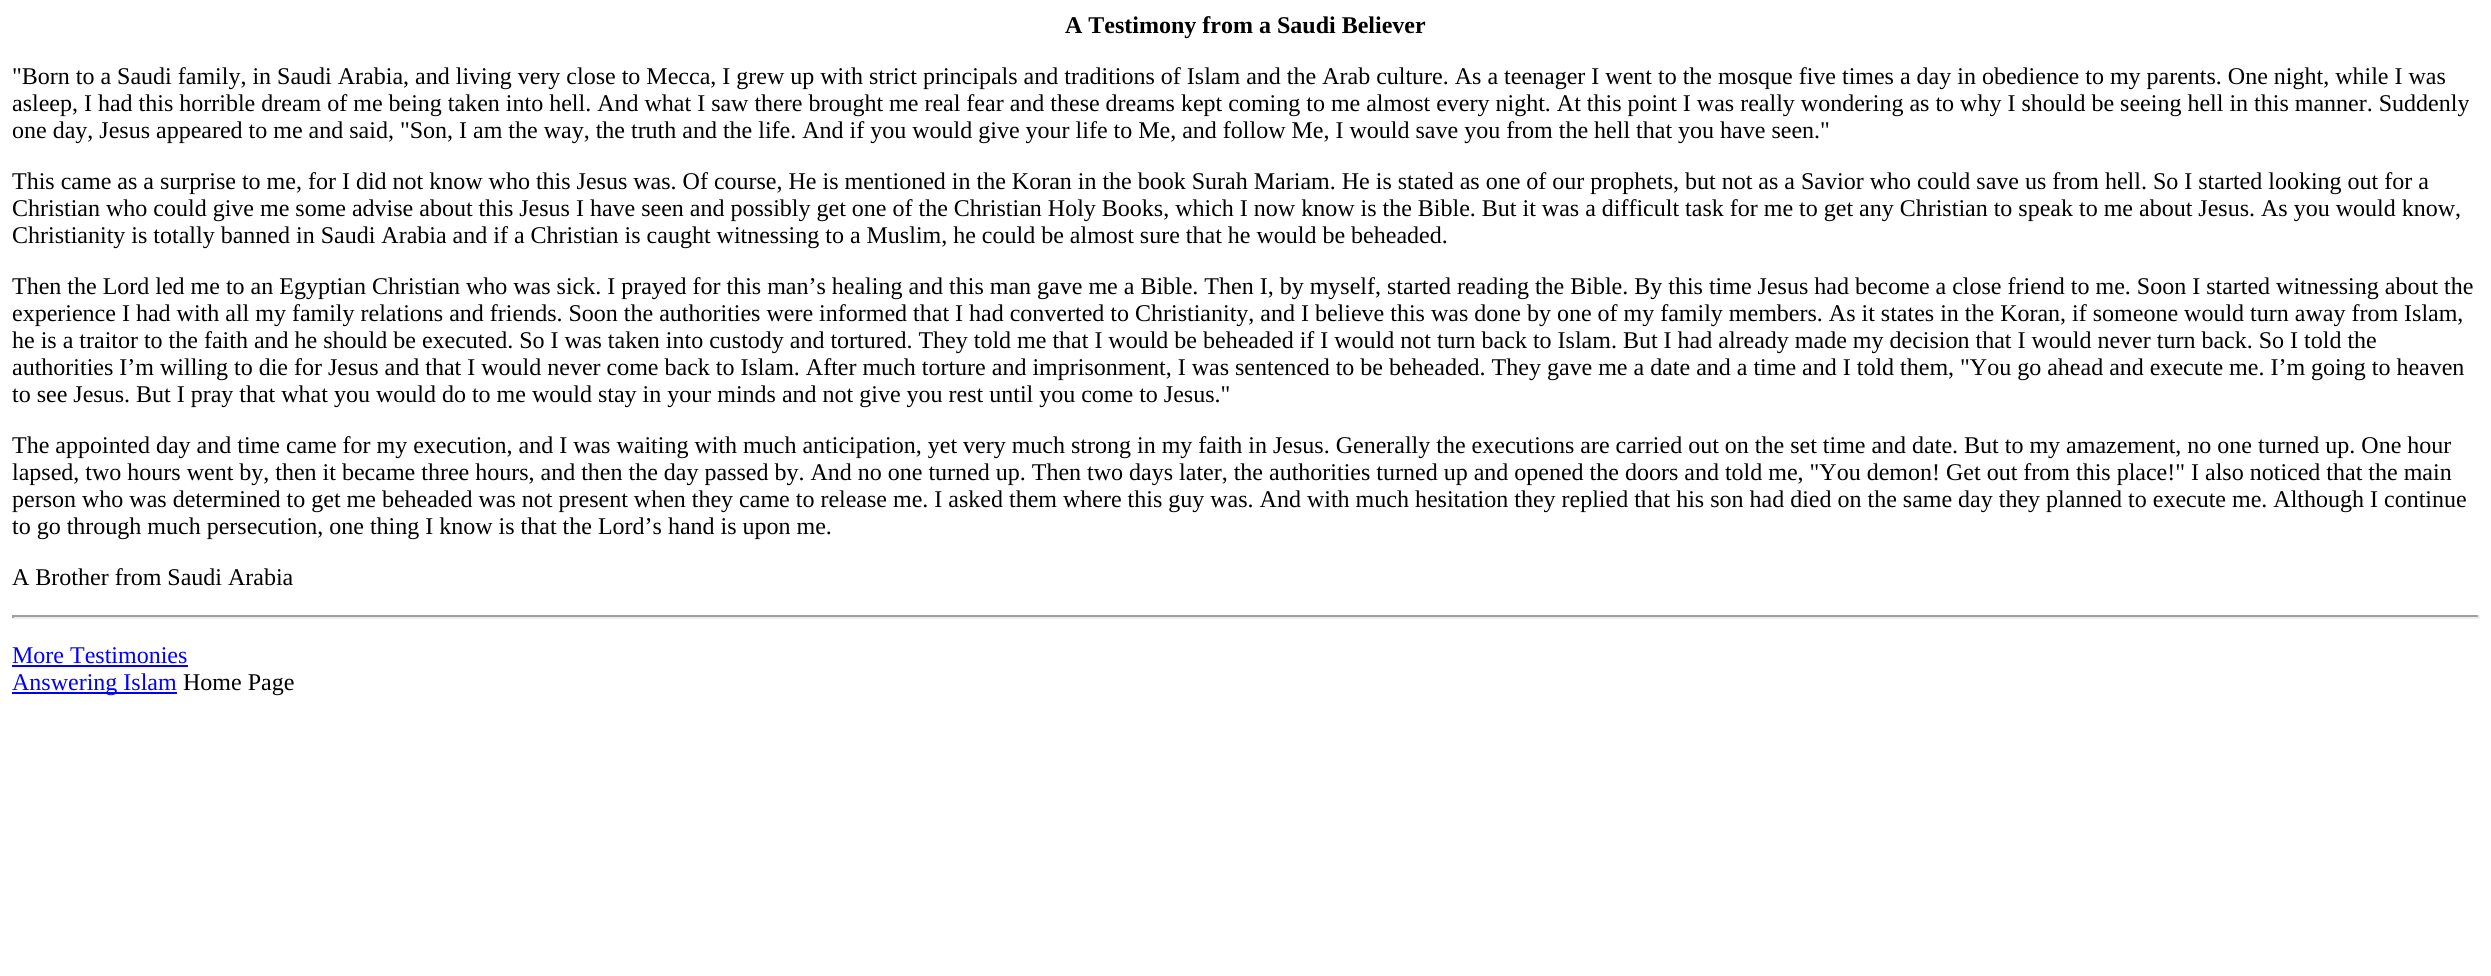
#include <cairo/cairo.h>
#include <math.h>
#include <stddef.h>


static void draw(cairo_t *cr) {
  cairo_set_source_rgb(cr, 1, 1, 1);
  cairo_paint(cr);
  cairo_set_source_rgb(cr, 159 / 255.0, 159 / 255.0, 159 / 255.0);
  cairo_rectangle(cr, 12, 615, 2468, 2);
  cairo_fill(cr);
  cairo_set_source_rgb(cr, 238 / 255.0, 238 / 255.0, 238 / 255.0);
  cairo_rectangle(cr, 2478, 615, 2, 3);
  cairo_fill(cr);
  cairo_rectangle(cr, 12, 617, 2468, 2);
  cairo_fill(cr);
  cairo_set_source_rgb(cr, 159 / 255.0, 159 / 255.0, 159 / 255.0);
  cairo_rectangle(cr, 12, 615, 2, 3);
  cairo_fill(cr);
  cairo_set_source_rgb(cr, 0, 0, 1);
  cairo_rectangle(cr, 12, 665, 176, 2);
  cairo_fill(cr);
  cairo_rectangle(cr, 12, 692, 165, 2);
  cairo_fill(cr);
  cairo_select_font_face(cr, "Liberation Serif", CAIRO_FONT_SLANT_NORMAL, CAIRO_FONT_WEIGHT_BOLD);
  cairo_set_font_size(cr, 24);
  cairo_set_source_rgb(cr, 0, 0, 0);
  cairo_move_to(cr, 1065, 33);
  cairo_show_text(cr, "A Testimony from a Saudi Believer");
  cairo_select_font_face(cr, "Liberation Serif", CAIRO_FONT_SLANT_NORMAL, CAIRO_FONT_WEIGHT_NORMAL);
  cairo_move_to(cr, 12, 84);
  cairo_show_text(cr, "\"Born to a Saudi family, in Saudi Arabia, and living very close to Mecca, I grew up with strict principals and traditions of Islam and the Arab culture. As a teenager I went to the mosque five times a day in obedience to my parents. One night, while I was");
  cairo_move_to(cr, 12, 111);
  cairo_show_text(cr, "asleep, I had this horrible dream of me being taken into hell. And what I saw there brought me real fear and these dreams kept coming to me almost every night. At this point I was really wondering as to why I should be seeing hell in this manner. Suddenly");
  cairo_move_to(cr, 12, 138);
  cairo_show_text(cr, "one day, Jesus appeared to me and said, \"Son, I am the way, the truth and the life. And if you would give your life to Me, and follow Me, I would save you from the hell that you have seen.\"");
  cairo_move_to(cr, 12, 189);
  cairo_show_text(cr, "This came as a surprise to me, for I did not know who this Jesus was. Of course, He is mentioned in the Koran in the book Surah Mariam. He is stated as one of our prophets, but not as a Savior who could save us from hell. So I started looking out for a");
  cairo_move_to(cr, 12, 216);
  cairo_show_text(cr, "Christian who could give me some advise about this Jesus I have seen and possibly get one of the Christian Holy Books, which I now know is the Bible. But it was a difficult task for me to get any Christian to speak to me about Jesus. As you would know,");
  cairo_move_to(cr, 12, 243);
  cairo_show_text(cr, "Christianity is totally banned in Saudi Arabia and if a Christian is caught witnessing to a Muslim, he could be almost sure that he would be beheaded.");
  cairo_move_to(cr, 12, 294);
  cairo_show_text(cr, "Then the Lord led me to an Egyptian Christian who was sick. I prayed for this man’s healing and this man gave me a Bible. Then I, by myself, started reading the Bible. By this time Jesus had become a close friend to me. Soon I started witnessing about the");
  cairo_move_to(cr, 12, 321);
  cairo_show_text(cr, "experience I had with all my family relations and friends. Soon the authorities were informed that I had converted to Christianity, and I believe this was done by one of my family members. As it states in the Koran, if someone would turn away from Islam,");
  cairo_move_to(cr, 12, 348);
  cairo_show_text(cr, "he is a traitor to the faith and he should be executed. So I was taken into custody and tortured. They told me that I would be beheaded if I would not turn back to Islam. But I had already made my decision that I would never turn back. So I told the");
  cairo_move_to(cr, 12, 375);
  cairo_show_text(cr, "authorities I’m willing to die for Jesus and that I would never come back to Islam. After much torture and imprisonment, I was sentenced to be beheaded. They gave me a date and a time and I told them, \"You go ahead and execute me. I’m going to heaven");
  cairo_move_to(cr, 12, 402);
  cairo_show_text(cr, "to see Jesus. But I pray that what you would do to me would stay in your minds and not give you rest until you come to Jesus.\"");
  cairo_move_to(cr, 12, 453);
  cairo_show_text(cr, "The appointed day and time came for my execution, and I was waiting with much anticipation, yet very much strong in my faith in Jesus. Generally the executions are carried out on the set time and date. But to my amazement, no one turned up. One hour");
  cairo_move_to(cr, 12, 480);
  cairo_show_text(cr, "lapsed, two hours went by, then it became three hours, and then the day passed by. And no one turned up. Then two days later, the authorities turned up and opened the doors and told me, \"You demon! Get out from this place!\" I also noticed that the main");
  cairo_move_to(cr, 12, 507);
  cairo_show_text(cr, "person who was determined to get me beheaded was not present when they came to release me. I asked them where this guy was. And with much hesitation they replied that his son had died on the same day they planned to execute me. Although I continue");
  cairo_move_to(cr, 12, 534);
  cairo_show_text(cr, "to go through much persecution, one thing I know is that the Lord’s hand is upon me.");
  cairo_move_to(cr, 12, 585);
  cairo_show_text(cr, "A Brother from Saudi Arabia");
  cairo_set_source_rgb(cr, 0, 0, 1);
  cairo_move_to(cr, 12, 663);
  cairo_show_text(cr, "More Testimonies");
  cairo_move_to(cr, 12, 690);
  cairo_show_text(cr, "Answering Islam");
  cairo_set_source_rgb(cr, 0, 0, 0);
  cairo_move_to(cr, 183, 690);
  cairo_show_text(cr, "Home Page");
}

int main(void) {
  cairo_surface_t *surface = cairo_image_surface_create(CAIRO_FORMAT_RGB24, 2491, 976);
  cairo_t *cr = cairo_create(surface);
  cairo_font_options_t *options = cairo_font_options_create();
  cairo_font_options_set_hint_metrics(options, CAIRO_HINT_METRICS_OFF);
  cairo_font_options_set_hint_style(options, CAIRO_HINT_STYLE_NONE);
  cairo_set_font_options(cr, options);
  cairo_set_miter_limit(cr, 4);
  draw(cr);
  cairo_surface_write_to_png(surface, "out.png");
  cairo_font_options_destroy(options);
  cairo_destroy(cr);
  cairo_surface_destroy(surface);
  return 0;
}
